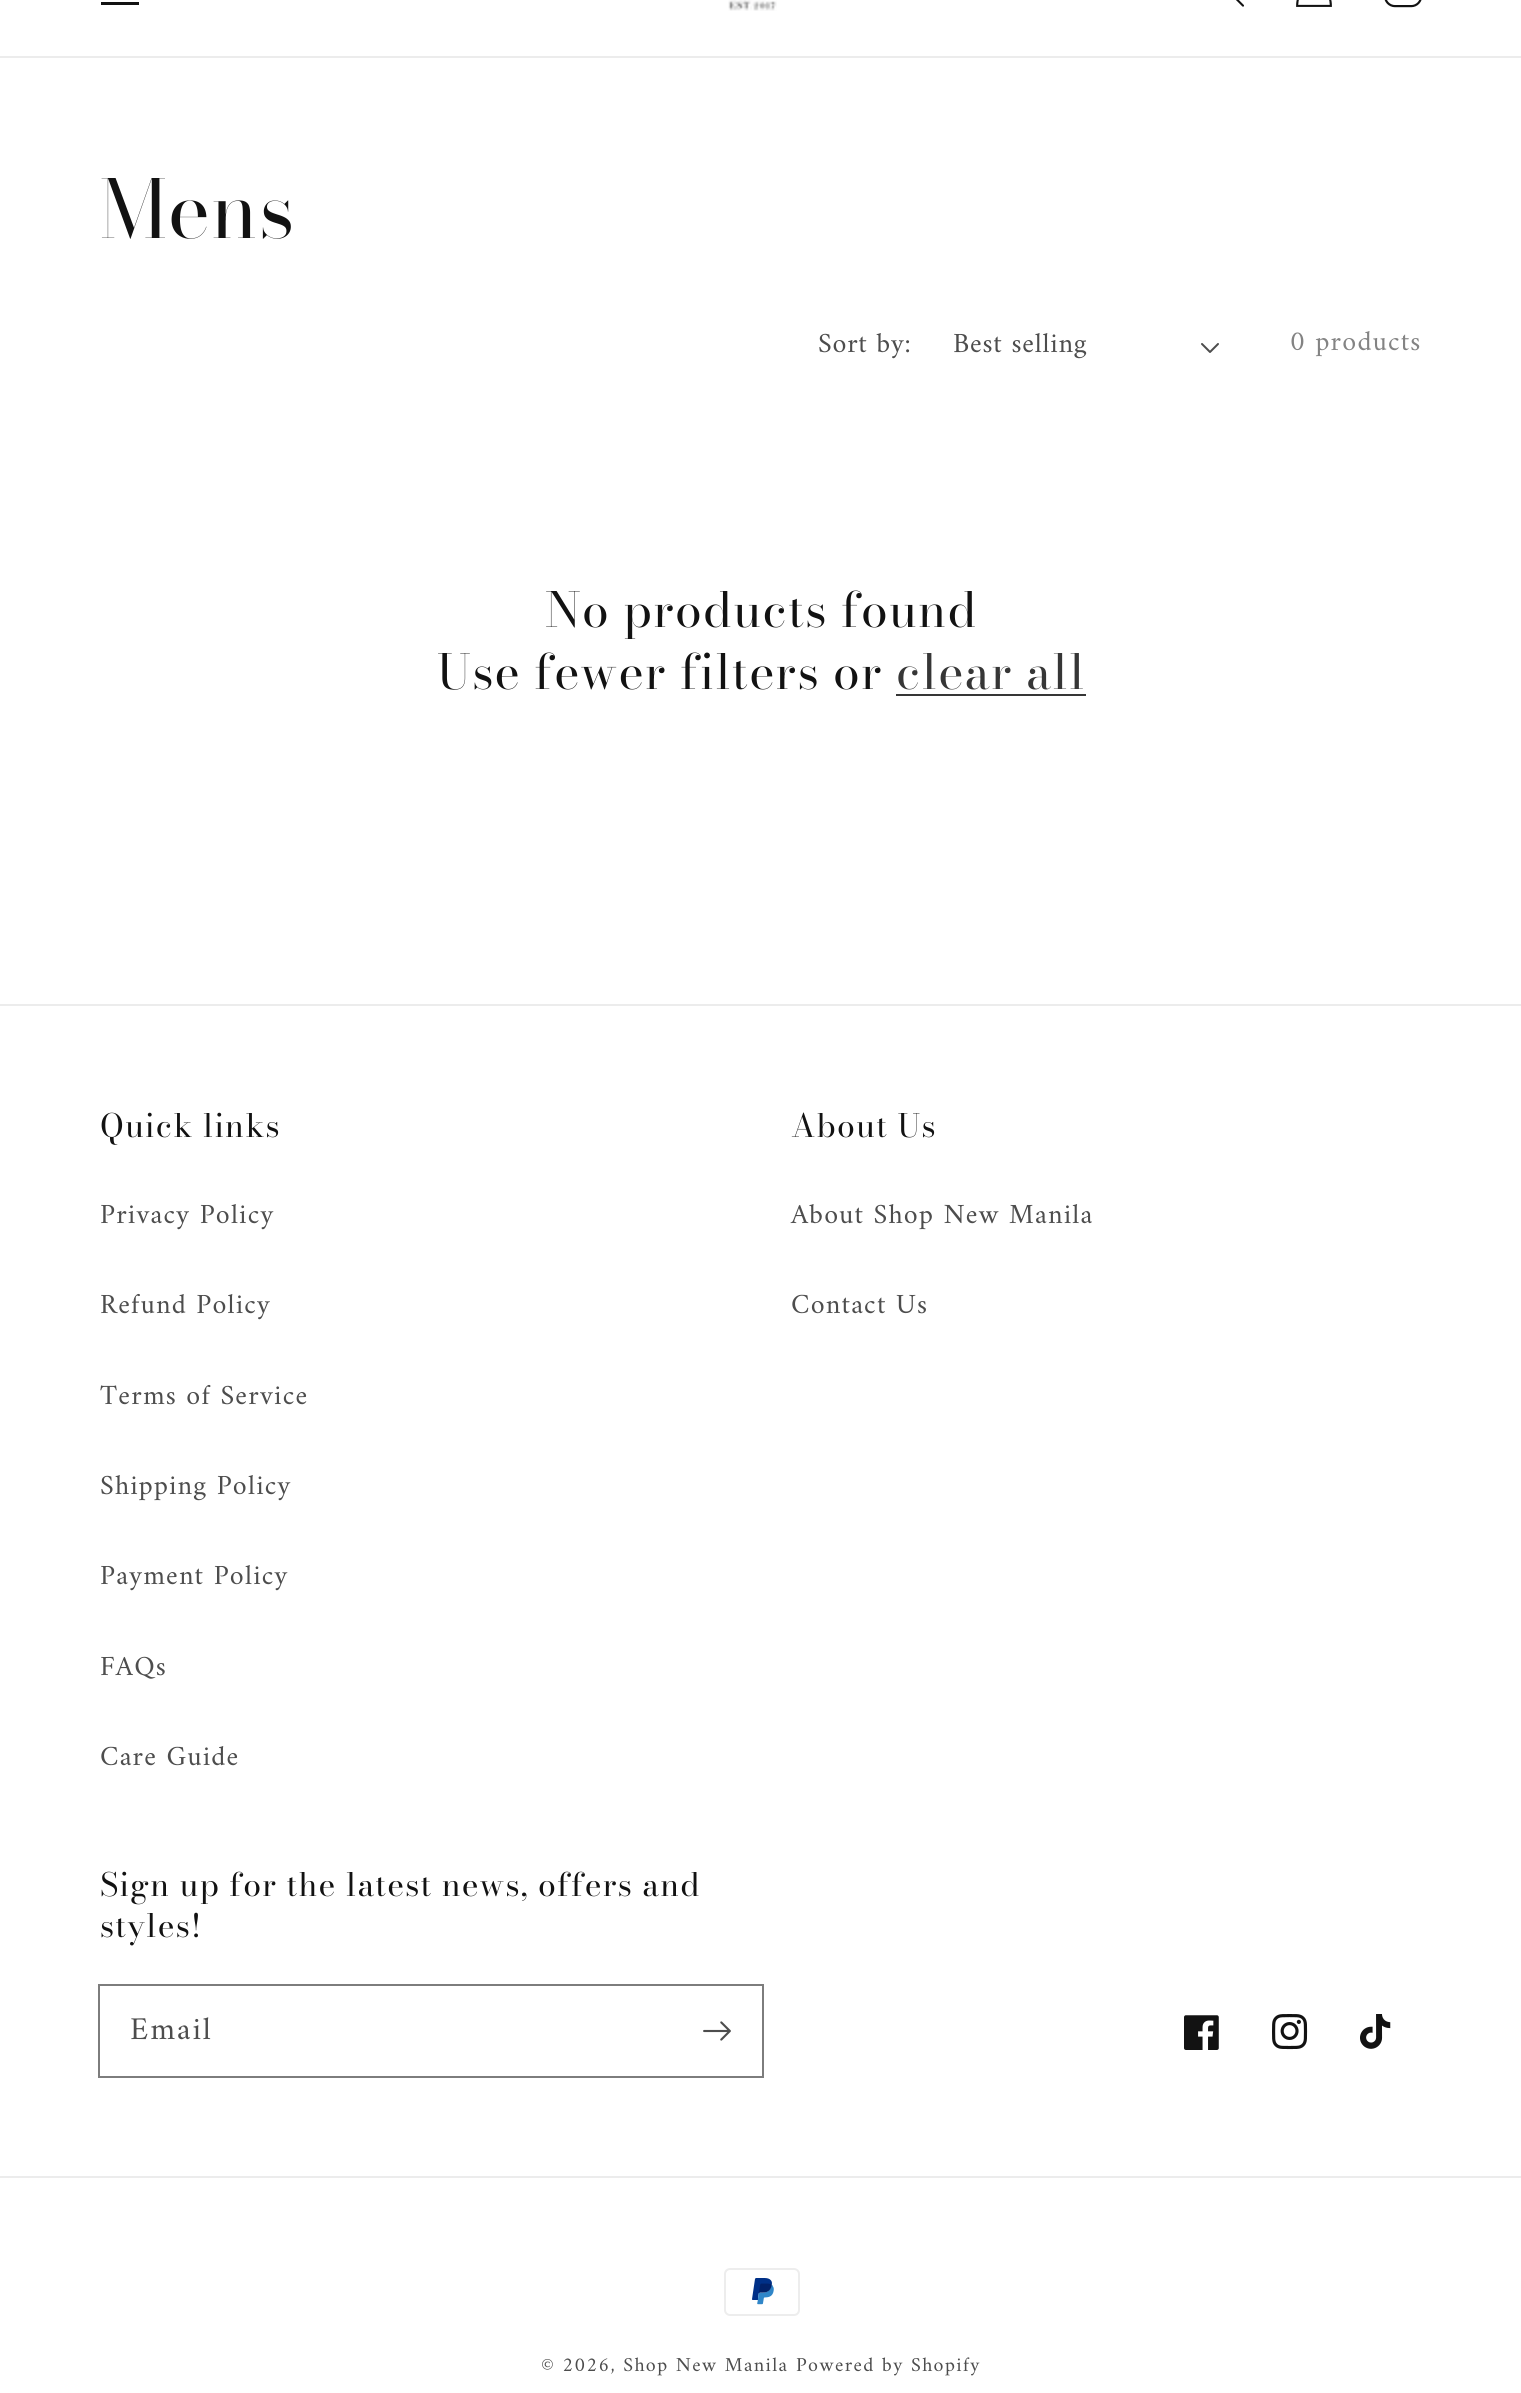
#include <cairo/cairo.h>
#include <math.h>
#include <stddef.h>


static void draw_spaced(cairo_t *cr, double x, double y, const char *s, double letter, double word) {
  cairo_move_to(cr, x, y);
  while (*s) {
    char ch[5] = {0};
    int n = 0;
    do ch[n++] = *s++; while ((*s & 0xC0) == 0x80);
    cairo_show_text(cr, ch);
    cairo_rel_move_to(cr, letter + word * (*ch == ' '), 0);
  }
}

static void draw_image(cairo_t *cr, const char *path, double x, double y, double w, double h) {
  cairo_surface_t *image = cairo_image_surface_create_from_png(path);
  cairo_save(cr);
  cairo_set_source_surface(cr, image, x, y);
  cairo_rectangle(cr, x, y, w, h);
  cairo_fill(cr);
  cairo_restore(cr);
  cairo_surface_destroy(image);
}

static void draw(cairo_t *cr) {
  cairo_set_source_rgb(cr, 1, 1, 1);
  cairo_paint(cr);
  cairo_set_source_rgb(cr, 236 / 255.0, 236 / 255.0, 236 / 255.0);
  cairo_rectangle(cr, 0, 56, 1521, 2);
  cairo_fill(cr);
  cairo_set_source_rgb(cr, 18 / 255.0, 18 / 255.0, 18 / 255.0);
  cairo_rectangle(cr, 101, 2, 38, 3);
  cairo_fill(cr);
  draw_image(cr, "images/1.png", 728, 0, 49, 11);
  draw_image(cr, "images/2.png", 1236, 0, 8, 7);
  draw_image(cr, "images/3.png", 1296, 0, 36, 7);
  draw_image(cr, "images/4.png", 1384, 0, 38, 8);
  draw_image(cr, "images/5.png", 1201, 343, 18, 10);
  cairo_set_source_rgb(cr, 54 / 255.0, 54 / 255.0, 54 / 255.0);
  cairo_rectangle(cr, 896, 694, 190, 2);
  cairo_fill(cr);
  cairo_set_source_rgb(cr, 236 / 255.0, 236 / 255.0, 236 / 255.0);
  cairo_rectangle(cr, 0, 1004, 1521, 2);
  cairo_fill(cr);
  cairo_rectangle(cr, 99, 1985, 664, 92);
  cairo_set_source_rgb(cr, 125 / 255.0, 125 / 255.0, 125 / 255.0);
  cairo_stroke(cr);
  draw_image(cr, "images/6.png", 703, 2021, 28, 20);
  draw_image(cr, "images/7.png", 1184, 2015, 35, 35);
  draw_image(cr, "images/8.png", 1272, 2014, 36, 36);
  draw_image(cr, "images/9.png", 1360, 2014, 31, 35);
  cairo_set_source_rgb(cr, 236 / 255.0, 236 / 255.0, 236 / 255.0);
  cairo_rectangle(cr, 0, 2176, 1521, 2);
  cairo_fill(cr);
  draw_image(cr, "images/10.png", 724, 2268, 76, 48);
  cairo_select_font_face(cr, "Bodoni Moda", CAIRO_FONT_SLANT_NORMAL, CAIRO_FONT_WEIGHT_NORMAL);
  cairo_set_font_size(cr, 80);
  cairo_set_source_rgb(cr, 18 / 255.0, 18 / 255.0, 18 / 255.0);
  draw_spaced(cr, 100, 238, "Mens", 1.2, 0);
  cairo_select_font_face(cr, "Amiri", CAIRO_FONT_SLANT_NORMAL, CAIRO_FONT_WEIGHT_NORMAL);
  cairo_set_font_size(cr, 28);
  cairo_set_source_rgb(cr, 77 / 255.0, 77 / 255.0, 77 / 255.0);
  draw_spaced(cr, 818, 352, "Sort by:", 0.75, 0);
  draw_spaced(cr, 953, 352, "Best selling", 0.75, 0);
  cairo_set_source_rgb(cr, 131 / 255.0, 131 / 255.0, 131 / 255.0);
  draw_spaced(cr, 1290, 350, "0 products", 1.2, 0);
  cairo_select_font_face(cr, "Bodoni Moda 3", CAIRO_FONT_SLANT_NORMAL, CAIRO_FONT_WEIGHT_NORMAL);
  cairo_set_font_size(cr, 48);
  cairo_set_source_rgb(cr, 18 / 255.0, 18 / 255.0, 18 / 255.0);
  draw_spaced(cr, 545, 627, "No products found", 1.2, 0);
  draw_spaced(cr, 437, 689, "Use fewer filters or", 1.2, 0);
  cairo_set_source_rgb(cr, 54 / 255.0, 54 / 255.0, 54 / 255.0);
  draw_spaced(cr, 896, 689, "clear all", 1.2, 0);
  cairo_select_font_face(cr, "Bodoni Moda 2", CAIRO_FONT_SLANT_NORMAL, CAIRO_FONT_WEIGHT_NORMAL);
  cairo_set_font_size(cr, 32);
  cairo_set_source_rgb(cr, 18 / 255.0, 18 / 255.0, 18 / 255.0);
  draw_spaced(cr, 100, 1137, "Quick links", 1.2, 0);
  cairo_select_font_face(cr, "Amiri", CAIRO_FONT_SLANT_NORMAL, CAIRO_FONT_WEIGHT_NORMAL);
  cairo_set_font_size(cr, 28);
  cairo_set_source_rgb(cr, 77 / 255.0, 77 / 255.0, 77 / 255.0);
  draw_spaced(cr, 100, 1223, "Privacy Policy", 1.2, 0);
  draw_spaced(cr, 100, 1313, "Refund Policy", 1.2, 0);
  draw_spaced(cr, 100, 1404, "Terms of Service", 1.2, 0);
  draw_spaced(cr, 100, 1494, "Shipping Policy", 1.2, 0);
  draw_spaced(cr, 100, 1584, "Payment Policy", 1.2, 0);
  draw_spaced(cr, 100, 1675, "FAQs", 1.2, 0);
  draw_spaced(cr, 100, 1765, "Care Guide", 1.2, 0);
  cairo_select_font_face(cr, "Bodoni Moda 2", CAIRO_FONT_SLANT_NORMAL, CAIRO_FONT_WEIGHT_NORMAL);
  cairo_set_font_size(cr, 32);
  cairo_set_source_rgb(cr, 18 / 255.0, 18 / 255.0, 18 / 255.0);
  draw_spaced(cr, 791, 1137, "About Us", 1.2, 0);
  cairo_select_font_face(cr, "Amiri", CAIRO_FONT_SLANT_NORMAL, CAIRO_FONT_WEIGHT_NORMAL);
  cairo_set_font_size(cr, 28);
  cairo_set_source_rgb(cr, 77 / 255.0, 77 / 255.0, 77 / 255.0);
  draw_spaced(cr, 791, 1223, "About Shop New Manila", 1.2, 0);
  draw_spaced(cr, 791, 1313, "Contact Us", 1.2, 0);
  cairo_select_font_face(cr, "Bodoni Moda 2", CAIRO_FONT_SLANT_NORMAL, CAIRO_FONT_WEIGHT_NORMAL);
  cairo_set_font_size(cr, 32);
  cairo_set_source_rgb(cr, 18 / 255.0, 18 / 255.0, 18 / 255.0);
  draw_spaced(cr, 100, 1896, "Sign up for the latest news, offers and", 1.2, 0);
  draw_spaced(cr, 100, 1937, "styles!", 1.2, 0);
  cairo_select_font_face(cr, "Amiri", CAIRO_FONT_SLANT_NORMAL, CAIRO_FONT_WEIGHT_NORMAL);
  cairo_set_source_rgb(cr, 77 / 255.0, 77 / 255.0, 77 / 255.0);
  draw_spaced(cr, 130, 2039, "Email", 2, 0);
  cairo_set_font_size(cr, 20);
  draw_spaced(cr, 541, 2371, "© 2026, Shop New Manila", 1.4, 0);
  draw_spaced(cr, 796, 2371, "Powered by Shopify", 1.4, 0);
}

int main(void) {
  cairo_surface_t *surface = cairo_image_surface_create(CAIRO_FORMAT_RGB24, 1521, 2393);
  cairo_t *cr = cairo_create(surface);
  cairo_font_options_t *options = cairo_font_options_create();
  cairo_font_options_set_hint_metrics(options, CAIRO_HINT_METRICS_OFF);
  cairo_font_options_set_hint_style(options, CAIRO_HINT_STYLE_NONE);
  cairo_set_font_options(cr, options);
  cairo_set_miter_limit(cr, 4);
  draw(cr);
  cairo_surface_write_to_png(surface, "out.png");
  cairo_font_options_destroy(options);
  cairo_destroy(cr);
  cairo_surface_destroy(surface);
  return 0;
}
